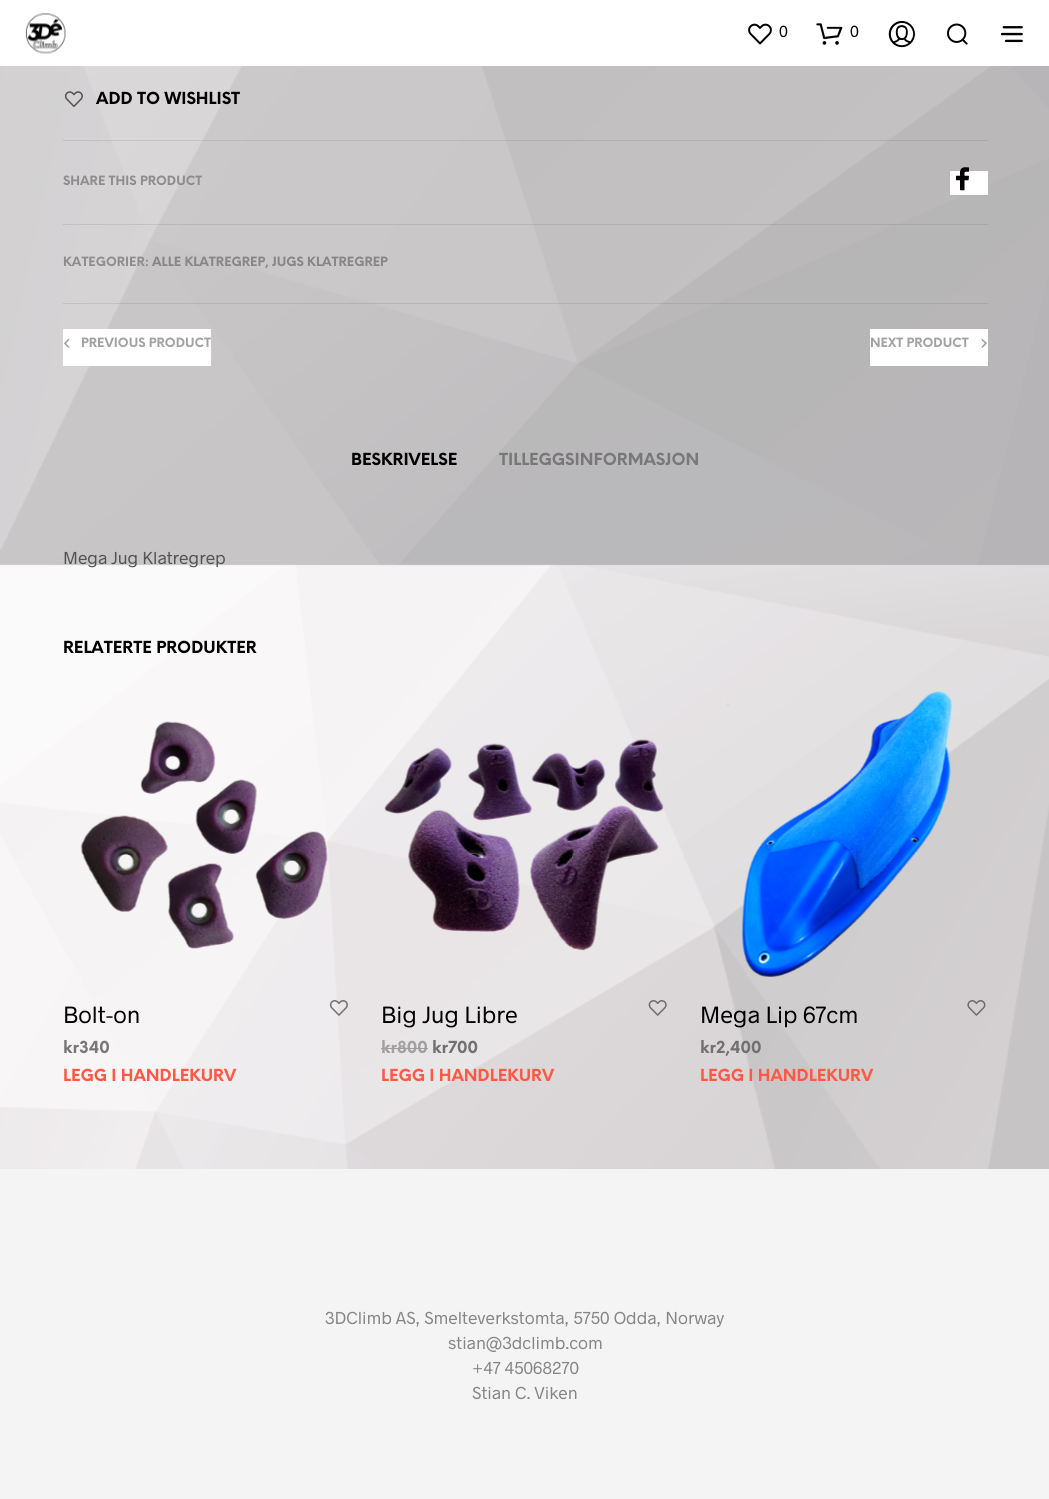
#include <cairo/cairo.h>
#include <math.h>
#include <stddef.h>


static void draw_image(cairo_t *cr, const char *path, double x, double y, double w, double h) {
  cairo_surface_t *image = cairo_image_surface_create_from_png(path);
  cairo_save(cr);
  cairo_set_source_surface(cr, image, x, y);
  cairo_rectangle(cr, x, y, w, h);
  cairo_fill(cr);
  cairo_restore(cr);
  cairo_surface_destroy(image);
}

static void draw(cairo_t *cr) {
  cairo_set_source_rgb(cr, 1, 1, 1);
  cairo_paint(cr);
  draw_image(cr, "images/1.png", 0, 66, 1049, 1103);
  draw_image(cr, "images/2.png", 25, 13, 41, 41);
  draw_image(cr, "images/3.png", 748, 23, 24, 22);
  draw_image(cr, "images/4.png", 816, 23, 27, 22);
  draw_image(cr, "images/5.png", 888, 20, 27, 28);
  draw_image(cr, "images/6.png", 947, 23, 21, 22);
  draw_image(cr, "images/7.png", 1000, 26, 23, 17);
  draw_image(cr, "images/8.png", 64, 91, 19, 16);
  cairo_set_source_rgba(cr, 84 / 255.0, 84 / 255.0, 84 / 255.0, 0.15);
  cairo_rectangle(cr, 63, 140, 925, 1);
  cairo_fill(cr);
  cairo_set_source_rgb(cr, 1, 1, 1);
  cairo_rectangle(cr, 950, 171, 38, 24);
  cairo_fill(cr);
  draw_image(cr, "images/9.png", 956, 167, 13, 24);
  cairo_set_source_rgba(cr, 84 / 255.0, 84 / 255.0, 84 / 255.0, 0.15);
  cairo_rectangle(cr, 63, 224, 925, 1);
  cairo_fill(cr);
  cairo_rectangle(cr, 63, 303, 925, 1);
  cairo_fill(cr);
  cairo_set_source_rgb(cr, 1, 1, 1);
  cairo_rectangle(cr, 63, 329, 148, 37);
  cairo_fill(cr);
  draw_image(cr, "images/10.png", 64, 338, 6, 10);
  cairo_rectangle(cr, 870, 329, 118, 37);
  cairo_fill(cr);
  draw_image(cr, "images/11.png", 981, 339, 6, 9);
  draw_image(cr, "images/12.png", 80, 721, 248, 228);
  draw_image(cr, "images/13.png", 329, 1000, 19, 16);
  draw_image(cr, "images/14.png", 384, 739, 280, 212);
  draw_image(cr, "images/15.png", 648, 1000, 19, 16);
  draw_image(cr, "images/16.png", 727, 691, 226, 286);
  draw_image(cr, "images/17.png", 967, 1000, 19, 16);
  cairo_set_source_rgb(cr, 244 / 255.0, 244 / 255.0, 244 / 255.0);
  cairo_rectangle(cr, 0, 1169, 1049, 330);
  cairo_fill(cr);
  cairo_select_font_face(cr, "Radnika", CAIRO_FONT_SLANT_NORMAL, CAIRO_FONT_WEIGHT_NORMAL);
  cairo_set_font_size(cr, 16.25);
  cairo_set_source_rgb(cr, 0, 0, 0);
  cairo_move_to(cr, 779, 37);
  cairo_show_text(cr, "0");
  cairo_move_to(cr, 850, 37);
  cairo_show_text(cr, "0");
  cairo_select_font_face(cr, "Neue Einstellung", CAIRO_FONT_SLANT_NORMAL, CAIRO_FONT_WEIGHT_BOLD);
  cairo_move_to(cr, 96, 104);
  cairo_show_text(cr, "ADD TO WISHLIST");
  cairo_set_font_size(cr, 12.5);
  cairo_set_source_rgb(cr, 142 / 255.0, 141 / 255.0, 141 / 255.0);
  cairo_move_to(cr, 63, 185);
  cairo_show_text(cr, "SHARE THIS PRODUCT");
  cairo_move_to(cr, 63, 266);
  cairo_show_text(cr, "KATEGORIER:");
  cairo_set_source_rgb(cr, 134 / 255.0, 134 / 255.0, 134 / 255.0);
  cairo_move_to(cr, 152, 266);
  cairo_show_text(cr, "ALLE KLATREGREP");
  cairo_move_to(cr, 265, 266);
  cairo_show_text(cr, ", JUGS KLATREGREP");
  cairo_set_source_rgb(cr, 161 / 255.0, 161 / 255.0, 161 / 255.0);
  cairo_move_to(cr, 81, 347);
  cairo_show_text(cr, "PREVIOUS PRODUCT");
  cairo_move_to(cr, 870, 347);
  cairo_show_text(cr, "NEXT PRODUCT");
  cairo_set_font_size(cr, 16.25);
  cairo_set_source_rgb(cr, 0, 0, 0);
  cairo_move_to(cr, 351, 465);
  cairo_show_text(cr, "BESKRIVELSE");
  cairo_set_source_rgb(cr, 121 / 255.0, 120 / 255.0, 121 / 255.0);
  cairo_move_to(cr, 499, 465);
  cairo_show_text(cr, "TILLEGGSINFORMASJON");
  cairo_select_font_face(cr, "Radnika", CAIRO_FONT_SLANT_NORMAL, CAIRO_FONT_WEIGHT_NORMAL);
  cairo_set_font_size(cr, 17.5);
  cairo_set_source_rgb(cr, 84 / 255.0, 84 / 255.0, 84 / 255.0);
  cairo_move_to(cr, 63, 564);
  cairo_show_text(cr, "Mega Jug Klatregrep");
  cairo_select_font_face(cr, "Neue Einstellung", CAIRO_FONT_SLANT_NORMAL, CAIRO_FONT_WEIGHT_BOLD);
  cairo_set_font_size(cr, 16.25);
  cairo_set_source_rgb(cr, 0, 0, 0);
  cairo_move_to(cr, 63, 653);
  cairo_show_text(cr, "RELATERTE PRODUKTER");
  cairo_select_font_face(cr, "Radnika", CAIRO_FONT_SLANT_NORMAL, CAIRO_FONT_WEIGHT_NORMAL);
  cairo_set_font_size(cr, 23.75);
  cairo_move_to(cr, 63, 1023);
  cairo_show_text(cr, "Bolt-on");
  cairo_select_font_face(cr, "Neue Einstellung", CAIRO_FONT_SLANT_NORMAL, CAIRO_FONT_WEIGHT_BOLD);
  cairo_set_font_size(cr, 16.25);
  cairo_set_source_rgb(cr, 121 / 255.0, 120 / 255.0, 121 / 255.0);
  cairo_move_to(cr, 63, 1053);
  cairo_show_text(cr, "kr340");
  cairo_set_source_rgb(cr, 1, 89 / 255.0, 67 / 255.0);
  cairo_move_to(cr, 63, 1081);
  cairo_show_text(cr, "LEGG I HANDLEKURV");
  cairo_select_font_face(cr, "Radnika", CAIRO_FONT_SLANT_NORMAL, CAIRO_FONT_WEIGHT_NORMAL);
  cairo_set_font_size(cr, 23.75);
  cairo_set_source_rgb(cr, 0, 0, 0);
  cairo_move_to(cr, 381, 1023);
  cairo_show_text(cr, "Big Jug Libre");
  cairo_select_font_face(cr, "Neue Einstellung", CAIRO_FONT_SLANT_NORMAL, CAIRO_FONT_WEIGHT_BOLD);
  cairo_set_font_size(cr, 16.25);
  cairo_set_source_rgb(cr, 161 / 255.0, 161 / 255.0, 161 / 255.0);
  cairo_move_to(cr, 381, 1053);
  cairo_show_text(cr, "kr");
  cairo_set_source_rgb(cr, 159 / 255.0, 157 / 255.0, 157 / 255.0);
  cairo_rectangle(cr, 381, 1048, 17, 1);
  cairo_fill(cr);
  cairo_set_source_rgb(cr, 161 / 255.0, 161 / 255.0, 161 / 255.0);
  cairo_move_to(cr, 397, 1053);
  cairo_show_text(cr, "800");
  cairo_set_source_rgb(cr, 159 / 255.0, 157 / 255.0, 158 / 255.0);
  cairo_rectangle(cr, 398, 1048, 30, 1);
  cairo_fill(cr);
  cairo_set_source_rgb(cr, 114 / 255.0, 113 / 255.0, 114 / 255.0);
  cairo_move_to(cr, 432, 1053);
  cairo_show_text(cr, "kr700");
  cairo_set_source_rgb(cr, 1, 89 / 255.0, 67 / 255.0);
  cairo_move_to(cr, 381, 1081);
  cairo_show_text(cr, "LEGG I HANDLEKURV");
  cairo_select_font_face(cr, "Radnika", CAIRO_FONT_SLANT_NORMAL, CAIRO_FONT_WEIGHT_NORMAL);
  cairo_set_font_size(cr, 23.75);
  cairo_set_source_rgb(cr, 0, 0, 0);
  cairo_move_to(cr, 700, 1023);
  cairo_show_text(cr, "Mega Lip 67cm");
  cairo_select_font_face(cr, "Neue Einstellung", CAIRO_FONT_SLANT_NORMAL, CAIRO_FONT_WEIGHT_BOLD);
  cairo_set_font_size(cr, 16.25);
  cairo_set_source_rgb(cr, 114 / 255.0, 113 / 255.0, 114 / 255.0);
  cairo_move_to(cr, 700, 1053);
  cairo_show_text(cr, "kr");
  cairo_move_to(cr, 716, 1053);
  cairo_show_text(cr, "2,400");
  cairo_set_source_rgb(cr, 1, 89 / 255.0, 67 / 255.0);
  cairo_move_to(cr, 700, 1081);
  cairo_show_text(cr, "LEGG I HANDLEKURV");
  cairo_select_font_face(cr, "Radnika", CAIRO_FONT_SLANT_NORMAL, CAIRO_FONT_WEIGHT_NORMAL);
  cairo_set_font_size(cr, 17.5);
  cairo_set_source_rgb(cr, 134 / 255.0, 134 / 255.0, 134 / 255.0);
  cairo_move_to(cr, 325, 1324);
  cairo_show_text(cr, "3DClimb AS, Smelteverkstomta, 5750 Odda, Norway");
  cairo_move_to(cr, 448, 1349);
  cairo_show_text(cr, "stian@3dclimb.com");
  cairo_move_to(cr, 472, 1374);
  cairo_show_text(cr, "+47 45068270");
  cairo_move_to(cr, 472, 1399);
  cairo_show_text(cr, "Stian C. Viken");
}

int main(void) {
  cairo_surface_t *surface = cairo_image_surface_create(CAIRO_FORMAT_RGB24, 1049, 1499);
  cairo_t *cr = cairo_create(surface);
  cairo_font_options_t *options = cairo_font_options_create();
  cairo_font_options_set_hint_metrics(options, CAIRO_HINT_METRICS_OFF);
  cairo_font_options_set_hint_style(options, CAIRO_HINT_STYLE_NONE);
  cairo_set_font_options(cr, options);
  cairo_set_miter_limit(cr, 4);
  draw(cr);
  cairo_surface_write_to_png(surface, "out.png");
  cairo_font_options_destroy(options);
  cairo_destroy(cr);
  cairo_surface_destroy(surface);
  return 0;
}
